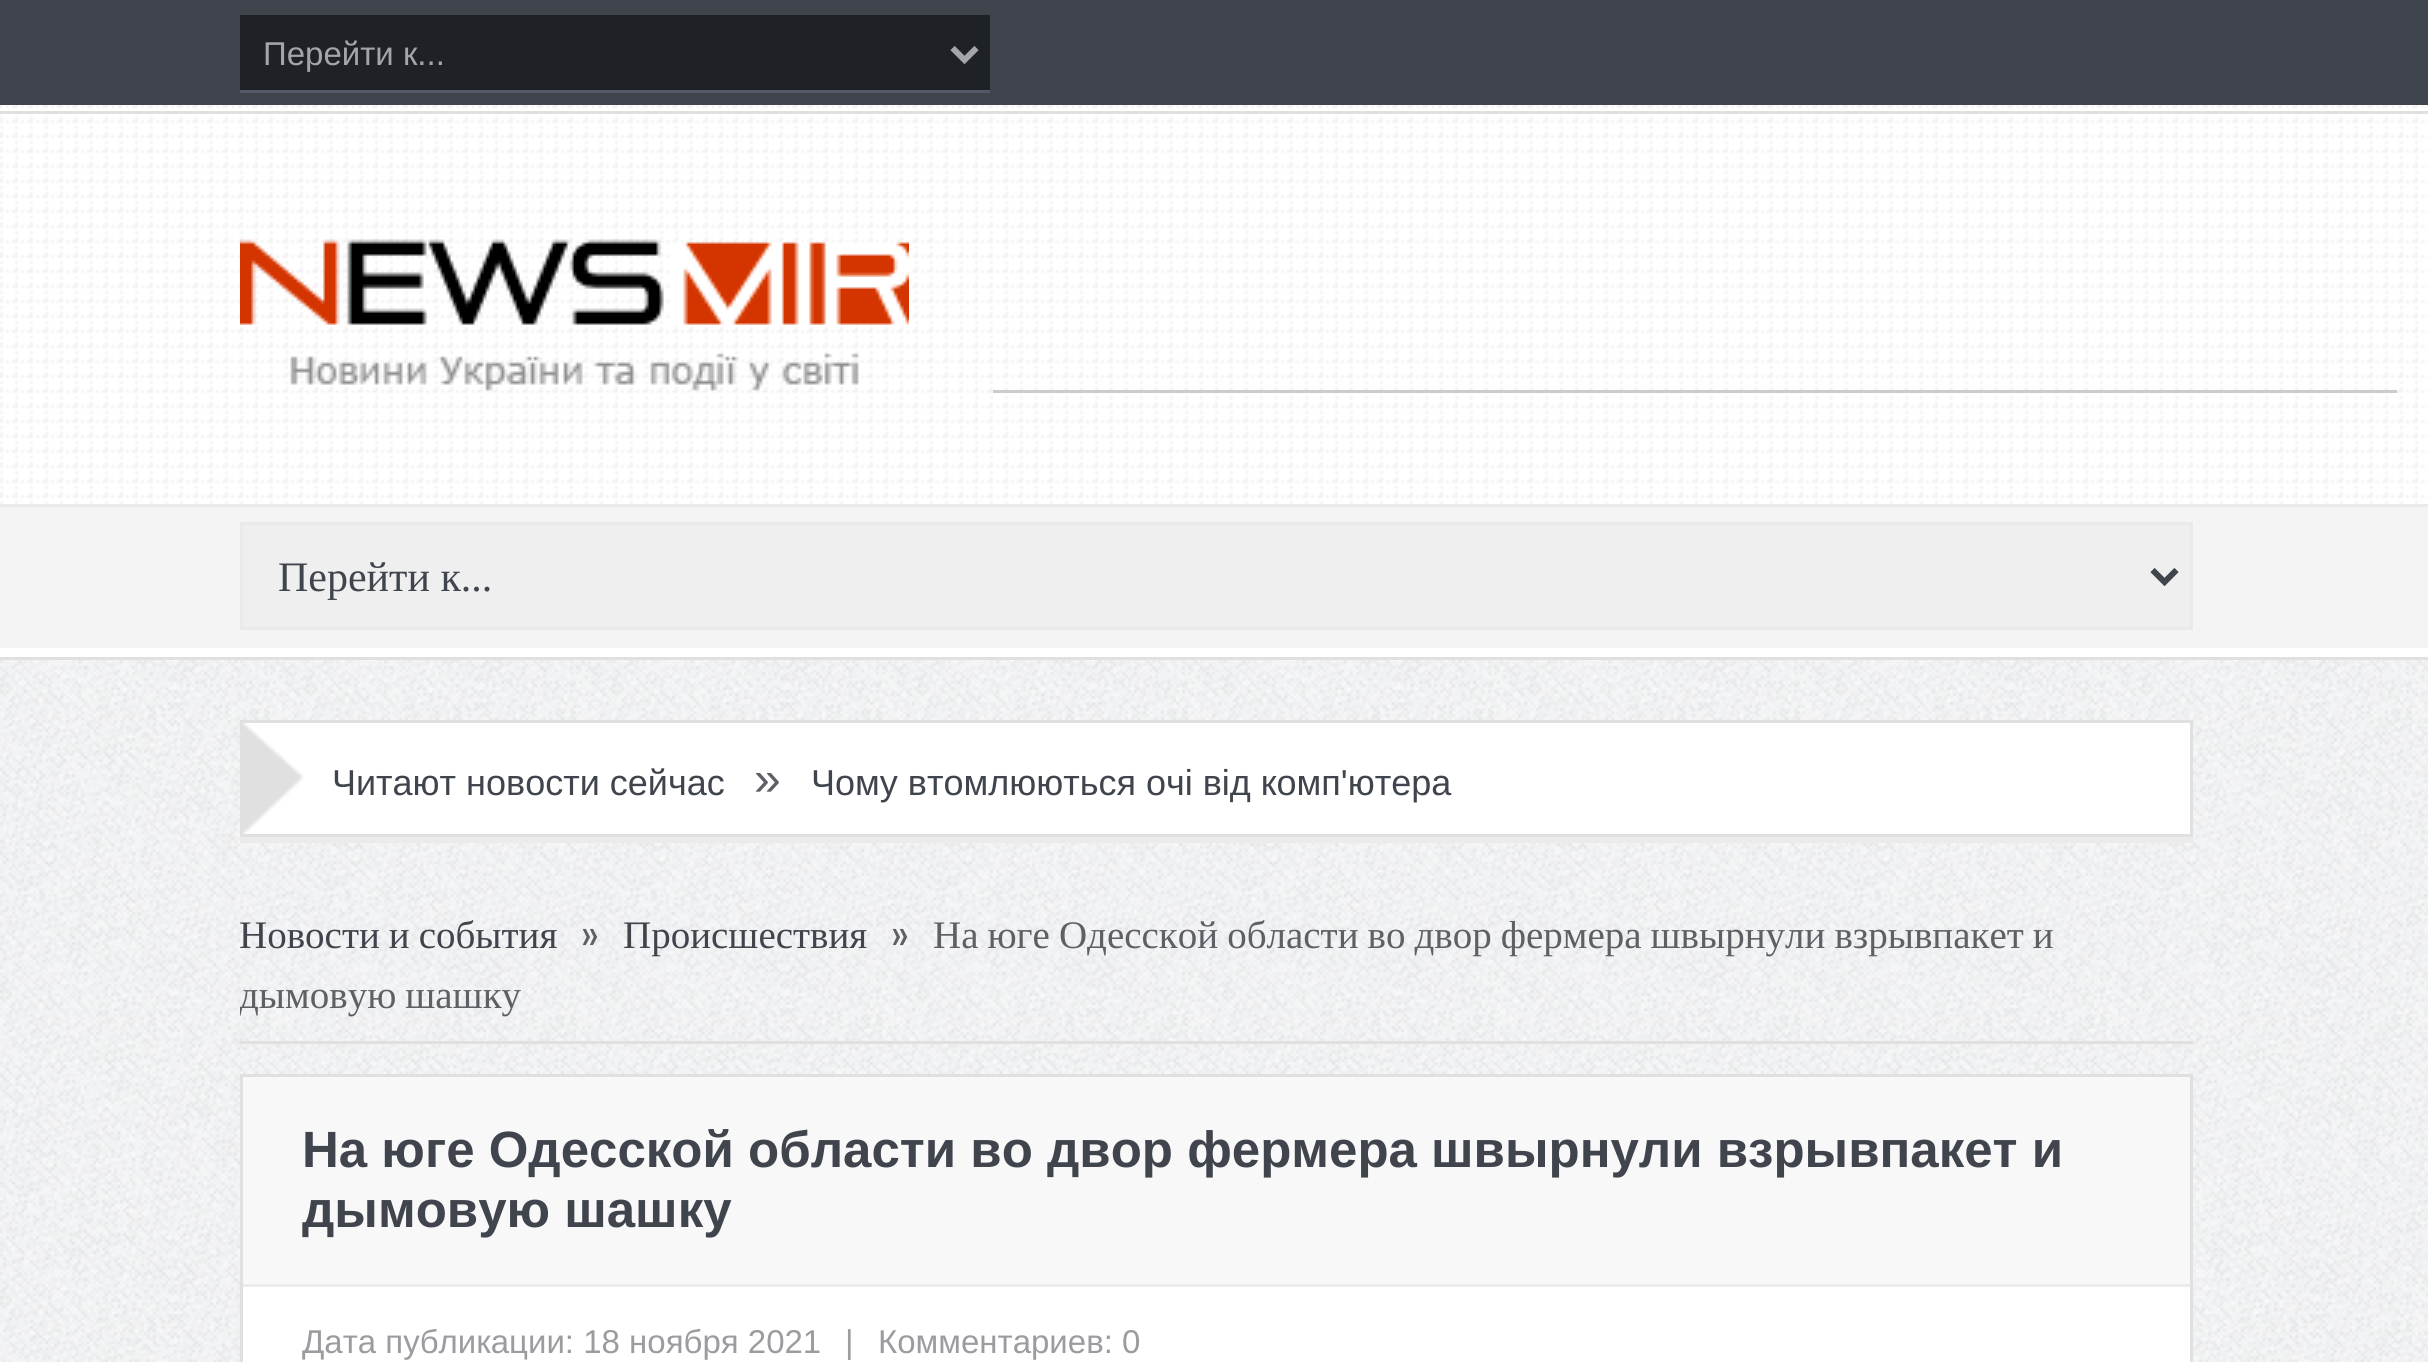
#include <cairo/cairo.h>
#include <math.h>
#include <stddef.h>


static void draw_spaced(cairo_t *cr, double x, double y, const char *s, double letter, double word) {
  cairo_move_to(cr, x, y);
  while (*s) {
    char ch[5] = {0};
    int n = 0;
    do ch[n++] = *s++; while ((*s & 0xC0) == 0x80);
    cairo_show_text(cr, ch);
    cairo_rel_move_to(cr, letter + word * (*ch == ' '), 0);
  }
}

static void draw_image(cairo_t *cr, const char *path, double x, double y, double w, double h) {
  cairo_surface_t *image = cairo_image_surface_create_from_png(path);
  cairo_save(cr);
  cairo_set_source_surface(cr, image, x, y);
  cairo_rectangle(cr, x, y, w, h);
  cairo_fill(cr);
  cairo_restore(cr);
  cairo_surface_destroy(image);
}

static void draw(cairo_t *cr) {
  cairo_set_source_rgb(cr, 1, 1, 1);
  cairo_paint(cr);
  draw_image(cr, "images/1.png", 0, 660, 2428, 702);
  cairo_set_source_rgb(cr, 64 / 255.0, 69 / 255.0, 77 / 255.0);
  cairo_rectangle(cr, 0, 0, 2428, 105);
  cairo_fill(cr);
  cairo_set_source_rgb(cr, 30 / 255.0, 33 / 255.0, 37 / 255.0);
  cairo_rectangle(cr, 240, 15, 750, 75);
  cairo_fill(cr);
  cairo_set_source_rgb(cr, 83 / 255.0, 89 / 255.0, 103 / 255.0);
  cairo_rectangle(cr, 240, 90, 750, 3);
  cairo_fill(cr);
  cairo_new_path(cr);
  cairo_move_to(cr, 952.5, 48);
  cairo_line_to(cr, 964.5, 60);
  cairo_line_to(cr, 976.5, 48);
  cairo_set_source_rgb(cr, 164 / 255.0, 165 / 255.0, 170 / 255.0);
  cairo_set_line_width(cr, 6);
  cairo_stroke(cr);
  draw_image(cr, "images/2.png", 0, 105, 2428, 399);
  cairo_set_source_rgb(cr, 224 / 255.0, 224 / 255.0, 224 / 255.0);
  cairo_rectangle(cr, 0, 111, 2428, 3);
  cairo_fill(cr);
  draw_image(cr, "images/3.png", 240, 239, 669, 152);
  cairo_set_source_rgb(cr, 204 / 255.0, 204 / 255.0, 204 / 255.0);
  cairo_rectangle(cr, 993, 390, 1404, 3);
  cairo_fill(cr);
  cairo_set_source_rgb(cr, 224 / 255.0, 224 / 255.0, 224 / 255.0);
  cairo_rectangle(cr, 0, 657, 2428, 3);
  cairo_fill(cr);
  cairo_set_source_rgb(cr, 244 / 255.0, 244 / 255.0, 244 / 255.0);
  cairo_rectangle(cr, 0, 507, 2428, 141);
  cairo_fill(cr);
  cairo_set_source_rgb(cr, 234 / 255.0, 234 / 255.0, 234 / 255.0);
  cairo_rectangle(cr, 0, 504, 2428, 3);
  cairo_fill(cr);
  cairo_set_source_rgb(cr, 239 / 255.0, 239 / 255.0, 239 / 255.0);
  cairo_rectangle(cr, 241.5, 523.5, 1950, 105);
  cairo_fill_preserve(cr);
  cairo_set_source_rgb(cr, 234 / 255.0, 234 / 255.0, 234 / 255.0);
  cairo_set_line_width(cr, 3);
  cairo_stroke(cr);
  cairo_new_path(cr);
  cairo_move_to(cr, 2152.5, 570);
  cairo_line_to(cr, 2164.5, 582);
  cairo_line_to(cr, 2176.5, 570);
  cairo_set_source_rgb(cr, 64 / 255.0, 69 / 255.0, 77 / 255.0);
  cairo_set_line_width(cr, 6);
  cairo_stroke(cr);
  cairo_set_source_rgb(cr, 235 / 255.0, 235 / 255.0, 235 / 255.0);
  cairo_rectangle(cr, 240, 837, 1953, 6);
  cairo_fill(cr);
  cairo_set_source_rgb(cr, 1, 1, 1);
  cairo_rectangle(cr, 241.5, 721.5, 1950, 114);
  cairo_fill_preserve(cr);
  cairo_set_source_rgb(cr, 224 / 255.0, 224 / 255.0, 224 / 255.0);
  cairo_set_line_width(cr, 3);
  cairo_stroke(cr);
  draw_image(cr, "images/4.png", 243, 723, 60, 111);
  cairo_rectangle(cr, 240, 1041, 1953, 3);
  cairo_fill(cr);
  cairo_set_source_rgb(cr, 1, 1, 1);
  cairo_rectangle(cr, 243, 1287, 1947, 75);
  cairo_fill(cr);
  cairo_rectangle(cr, 241.5, 1075.5, 1950, 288);
  cairo_set_source_rgb(cr, 224 / 255.0, 224 / 255.0, 224 / 255.0);
  cairo_stroke(cr);
  cairo_set_source_rgb(cr, 248 / 255.0, 248 / 255.0, 248 / 255.0);
  cairo_rectangle(cr, 243, 1077, 1947, 207);
  cairo_fill(cr);
  cairo_set_source_rgb(cr, 235 / 255.0, 235 / 255.0, 235 / 255.0);
  cairo_rectangle(cr, 243, 1284, 1947, 3);
  cairo_fill(cr);
  cairo_select_font_face(cr, "Liberation Sans", CAIRO_FONT_SLANT_NORMAL, CAIRO_FONT_WEIGHT_NORMAL);
  cairo_set_font_size(cr, 33);
  cairo_set_source_rgb(cr, 164 / 255.0, 165 / 255.0, 170 / 255.0);
  cairo_move_to(cr, 263, 65);
  cairo_show_text(cr, "Перейти к...");
  cairo_save(cr);
  cairo_rectangle(cr, 279, 549, 1839, 54);
  cairo_clip(cr);
  cairo_select_font_face(cr, "Liberation Serif", CAIRO_FONT_SLANT_NORMAL, CAIRO_FONT_WEIGHT_NORMAL);
  cairo_set_font_size(cr, 42);
  cairo_set_source_rgb(cr, 64 / 255.0, 69 / 255.0, 77 / 255.0);
  cairo_move_to(cr, 278, 591);
  cairo_show_text(cr, "Перейти к...");
  cairo_restore(cr);
  cairo_set_font_size(cr, 36);
  cairo_set_source_rgb(cr, 64 / 255.0, 69 / 255.0, 77 / 255.0);
  cairo_move_to(cr, 332, 795);
  cairo_show_text(cr, "Читают новости сейчас");
  cairo_set_font_size(cr, 48);
  cairo_set_source_rgb(cr, 94 / 255.0, 96 / 255.0, 102 / 255.0);
  cairo_move_to(cr, 754, 795);
  cairo_show_text(cr, "»");
  cairo_set_font_size(cr, 36);
  cairo_set_source_rgb(cr, 64 / 255.0, 69 / 255.0, 77 / 255.0);
  cairo_move_to(cr, 811, 795);
  cairo_show_text(cr, "Чому втомлюються очі від комп'ютера");
  cairo_save(cr);
  cairo_rectangle(cr, 240, 903, 1953, 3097);
  cairo_clip(cr);
  cairo_select_font_face(cr, "Liberation Serif", CAIRO_FONT_SLANT_NORMAL, CAIRO_FONT_WEIGHT_NORMAL);
  cairo_set_font_size(cr, 39);
  draw_spaced(cr, 239, 948, "Новости и события", 0, -0.75);
  cairo_restore(cr);
  cairo_select_font_face(cr, "Play", CAIRO_FONT_SLANT_NORMAL, CAIRO_FONT_WEIGHT_NORMAL);
  cairo_set_font_size(cr, 42);
  cairo_set_source_rgb(cr, 94 / 255.0, 96 / 255.0, 102 / 255.0);
  cairo_move_to(cr, 581, 948);
  cairo_show_text(cr, "»");
  cairo_select_font_face(cr, "Liberation Serif", CAIRO_FONT_SLANT_NORMAL, CAIRO_FONT_WEIGHT_NORMAL);
  cairo_set_font_size(cr, 39);
  cairo_set_source_rgb(cr, 64 / 255.0, 69 / 255.0, 77 / 255.0);
  cairo_move_to(cr, 623, 948);
  cairo_show_text(cr, "Происшествия");
  cairo_select_font_face(cr, "Play", CAIRO_FONT_SLANT_NORMAL, CAIRO_FONT_WEIGHT_NORMAL);
  cairo_set_font_size(cr, 42);
  cairo_set_source_rgb(cr, 94 / 255.0, 96 / 255.0, 102 / 255.0);
  cairo_move_to(cr, 891, 948);
  cairo_show_text(cr, "»");
  cairo_select_font_face(cr, "Liberation Serif", CAIRO_FONT_SLANT_NORMAL, CAIRO_FONT_WEIGHT_NORMAL);
  cairo_set_font_size(cr, 39);
  draw_spaced(cr, 933, 948, "На юге Одесской области во двор фермера швырнули взрывпакет и", 0, -0.75);
  cairo_save(cr);
  cairo_rectangle(cr, 240, 903, 1953, 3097);
  cairo_clip(cr);
  draw_spaced(cr, 239, 1008, "дымовую шашку", 0, -0.75);
  cairo_restore(cr);
  cairo_select_font_face(cr, "Liberation Sans", CAIRO_FONT_SLANT_NORMAL, CAIRO_FONT_WEIGHT_BOLD);
  cairo_set_font_size(cr, 51);
  cairo_set_source_rgb(cr, 64 / 255.0, 69 / 255.0, 77 / 255.0);
  cairo_move_to(cr, 302, 1167);
  cairo_show_text(cr, "На юге Одесской области во двор фермера швырнули взрывпакет и");
  cairo_move_to(cr, 302, 1227);
  cairo_show_text(cr, "дымовую шашку");
  cairo_select_font_face(cr, "Liberation Sans", CAIRO_FONT_SLANT_NORMAL, CAIRO_FONT_WEIGHT_NORMAL);
  cairo_set_font_size(cr, 33);
  cairo_set_source_rgb(cr, 155 / 255.0, 156 / 255.0, 160 / 255.0);
  cairo_move_to(cr, 302, 1353);
  cairo_show_text(cr, "Дата публикации: 18 ноября 2021");
  cairo_move_to(cr, 845, 1353);
  cairo_show_text(cr, "|");
  cairo_move_to(cr, 878, 1353);
  cairo_show_text(cr, "Комментариев: 0");
}

int main(void) {
  cairo_surface_t *surface = cairo_image_surface_create(CAIRO_FORMAT_RGB24, 2428, 1362);
  cairo_t *cr = cairo_create(surface);
  cairo_font_options_t *options = cairo_font_options_create();
  cairo_font_options_set_hint_metrics(options, CAIRO_HINT_METRICS_OFF);
  cairo_font_options_set_hint_style(options, CAIRO_HINT_STYLE_NONE);
  cairo_set_font_options(cr, options);
  cairo_set_miter_limit(cr, 4);
  draw(cr);
  cairo_surface_write_to_png(surface, "out.png");
  cairo_font_options_destroy(options);
  cairo_destroy(cr);
  cairo_surface_destroy(surface);
  return 0;
}
